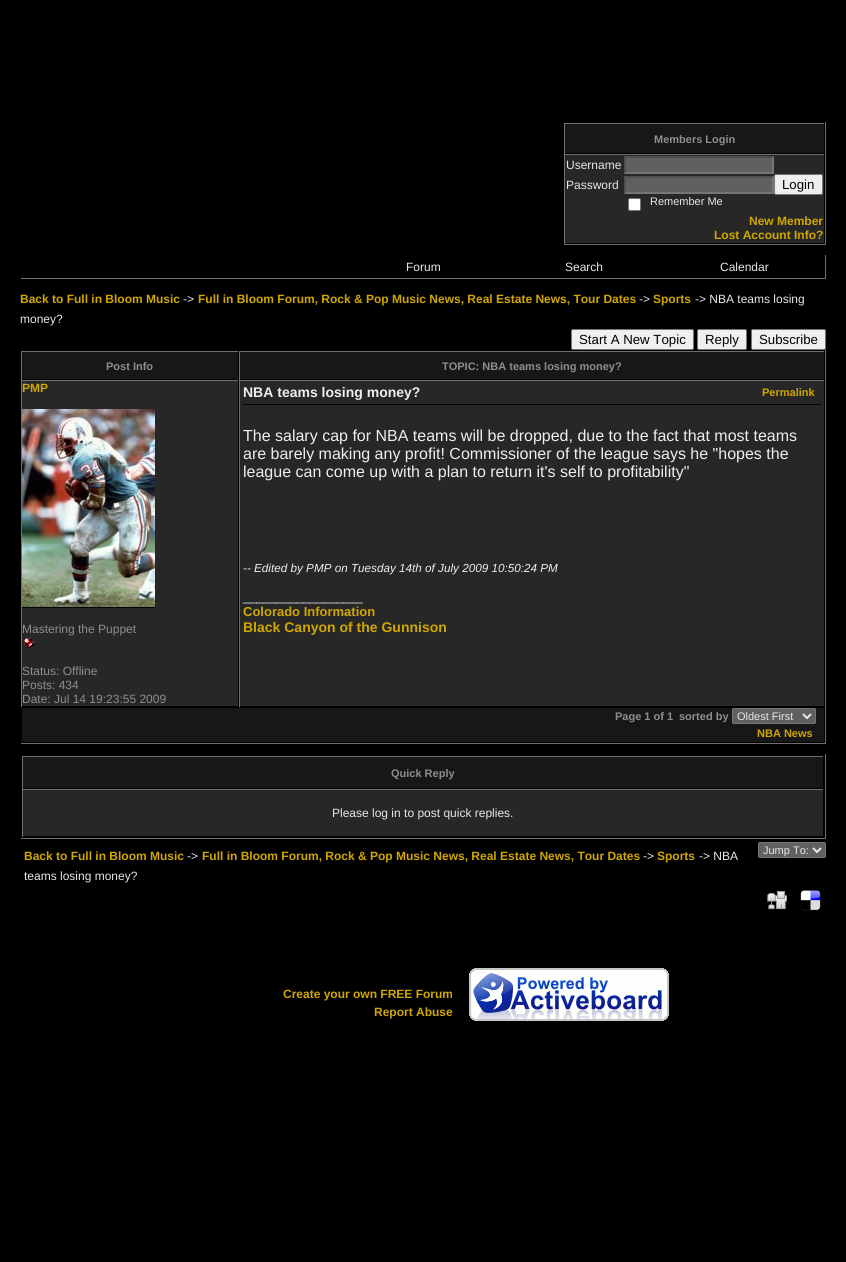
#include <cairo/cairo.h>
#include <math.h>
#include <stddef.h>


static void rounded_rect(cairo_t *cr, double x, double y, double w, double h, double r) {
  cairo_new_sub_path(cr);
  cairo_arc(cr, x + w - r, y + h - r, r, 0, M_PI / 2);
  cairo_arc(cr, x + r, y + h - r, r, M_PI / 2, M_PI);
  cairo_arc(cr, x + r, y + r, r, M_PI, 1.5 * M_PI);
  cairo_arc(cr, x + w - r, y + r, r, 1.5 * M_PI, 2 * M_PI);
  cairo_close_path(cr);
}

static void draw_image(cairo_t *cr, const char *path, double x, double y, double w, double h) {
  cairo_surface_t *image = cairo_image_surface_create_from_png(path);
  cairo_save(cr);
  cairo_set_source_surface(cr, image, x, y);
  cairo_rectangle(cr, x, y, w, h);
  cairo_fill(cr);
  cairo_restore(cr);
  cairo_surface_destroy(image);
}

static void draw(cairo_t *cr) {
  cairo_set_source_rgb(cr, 0, 0, 0);
  cairo_paint(cr);
  cairo_set_source_rgb(cr, 112 / 255.0, 112 / 255.0, 112 / 255.0);
  cairo_rectangle(cr, 825, 122, 1, 123);
  cairo_fill(cr);
  cairo_rectangle(cr, 563, 244, 263, 1);
  cairo_fill(cr);
  cairo_set_source_rgb(cr, 0, 0, 0);
  cairo_rectangle(cr, 563, 244, 1, 1);
  cairo_fill(cr);
  cairo_set_source_rgb(cr, 23 / 255.0, 23 / 255.0, 23 / 255.0);
  cairo_rectangle(cr, 565, 124, 259, 29);
  cairo_fill(cr);
  cairo_set_source_rgb(cr, 112 / 255.0, 112 / 255.0, 112 / 255.0);
  cairo_rectangle(cr, 564, 123, 261, 1);
  cairo_fill(cr);
  cairo_set_source_rgb(cr, 0, 0, 0);
  cairo_rectangle(cr, 824, 123, 1, 1);
  cairo_fill(cr);
  cairo_set_source_rgb(cr, 112 / 255.0, 112 / 255.0, 112 / 255.0);
  cairo_rectangle(cr, 564, 123, 1, 31);
  cairo_fill(cr);
  cairo_set_source_rgb(cr, 39 / 255.0, 39 / 255.0, 39 / 255.0);
  cairo_rectangle(cr, 565, 155, 259, 88);
  cairo_fill(cr);
  cairo_set_source_rgb(cr, 112 / 255.0, 112 / 255.0, 112 / 255.0);
  cairo_rectangle(cr, 564, 154, 261, 1);
  cairo_fill(cr);
  cairo_set_source_rgb(cr, 0, 0, 0);
  cairo_rectangle(cr, 824, 154, 1, 1);
  cairo_fill(cr);
  cairo_set_source_rgb(cr, 112 / 255.0, 112 / 255.0, 112 / 255.0);
  cairo_rectangle(cr, 564, 154, 1, 90);
  cairo_fill(cr);
  cairo_set_source_rgb(cr, 96 / 255.0, 96 / 255.0, 96 / 255.0);
  cairo_rectangle(cr, 624, 156, 150, 18);
  cairo_fill(cr);
  cairo_set_source_rgb(cr, 79 / 255.0, 79 / 255.0, 79 / 255.0);
  cairo_new_path(cr);
  cairo_move_to(cr, 624, 156);
  cairo_line_to(cr, 774, 156);
  cairo_line_to(cr, 772, 158);
  cairo_line_to(cr, 626, 158);
  cairo_close_path(cr);
  cairo_fill(cr);
  cairo_set_source_rgb(cr, 118 / 255.0, 118 / 255.0, 118 / 255.0);
  cairo_new_path(cr);
  cairo_move_to(cr, 774, 156);
  cairo_line_to(cr, 774, 174);
  cairo_line_to(cr, 772, 172);
  cairo_line_to(cr, 772, 158);
  cairo_close_path(cr);
  cairo_fill(cr);
  cairo_new_path(cr);
  cairo_move_to(cr, 774, 174);
  cairo_line_to(cr, 624, 174);
  cairo_line_to(cr, 626, 172);
  cairo_line_to(cr, 772, 172);
  cairo_close_path(cr);
  cairo_fill(cr);
  cairo_set_source_rgb(cr, 79 / 255.0, 79 / 255.0, 79 / 255.0);
  cairo_new_path(cr);
  cairo_move_to(cr, 624, 174);
  cairo_line_to(cr, 624, 156);
  cairo_line_to(cr, 626, 158);
  cairo_line_to(cr, 626, 172);
  cairo_close_path(cr);
  cairo_fill(cr);
  cairo_set_source_rgb(cr, 96 / 255.0, 96 / 255.0, 96 / 255.0);
  cairo_rectangle(cr, 624, 176, 150, 18);
  cairo_fill(cr);
  cairo_set_source_rgb(cr, 79 / 255.0, 79 / 255.0, 79 / 255.0);
  cairo_new_path(cr);
  cairo_move_to(cr, 624, 176);
  cairo_line_to(cr, 774, 176);
  cairo_line_to(cr, 772, 178);
  cairo_line_to(cr, 626, 178);
  cairo_close_path(cr);
  cairo_fill(cr);
  cairo_set_source_rgb(cr, 118 / 255.0, 118 / 255.0, 118 / 255.0);
  cairo_new_path(cr);
  cairo_move_to(cr, 774, 176);
  cairo_line_to(cr, 774, 194);
  cairo_line_to(cr, 772, 192);
  cairo_line_to(cr, 772, 178);
  cairo_close_path(cr);
  cairo_fill(cr);
  cairo_new_path(cr);
  cairo_move_to(cr, 774, 194);
  cairo_line_to(cr, 624, 194);
  cairo_line_to(cr, 626, 192);
  cairo_line_to(cr, 772, 192);
  cairo_close_path(cr);
  cairo_fill(cr);
  cairo_set_source_rgb(cr, 79 / 255.0, 79 / 255.0, 79 / 255.0);
  cairo_new_path(cr);
  cairo_move_to(cr, 624, 194);
  cairo_line_to(cr, 624, 176);
  cairo_line_to(cr, 626, 178);
  cairo_line_to(cr, 626, 192);
  cairo_close_path(cr);
  cairo_fill(cr);
  cairo_set_source_rgb(cr, 239 / 255.0, 239 / 255.0, 239 / 255.0);
  rounded_rect(cr, 774.5, 174.5, 48, 20, 1.5);
  cairo_fill_preserve(cr);
  cairo_set_source_rgb(cr, 118 / 255.0, 118 / 255.0, 118 / 255.0);
  cairo_set_line_width(cr, 1);
  cairo_stroke(cr);
  cairo_set_source_rgb(cr, 1, 1, 1);
  rounded_rect(cr, 628.5, 198.5, 12, 12, 1.5);
  cairo_fill_preserve(cr);
  cairo_set_source_rgb(cr, 118 / 255.0, 118 / 255.0, 118 / 255.0);
  cairo_stroke(cr);
  cairo_set_source_rgb(cr, 112 / 255.0, 112 / 255.0, 112 / 255.0);
  cairo_rectangle(cr, 825, 255, 1, 24);
  cairo_fill(cr);
  cairo_rectangle(cr, 20, 278, 806, 1);
  cairo_fill(cr);
  cairo_set_source_rgb(cr, 0, 0, 0);
  cairo_rectangle(cr, 20, 278, 1, 1);
  cairo_fill(cr);
  cairo_set_source_rgb(cr, 239 / 255.0, 239 / 255.0, 239 / 255.0);
  rounded_rect(cr, 571.5, 329.5, 122, 20, 1.5);
  cairo_fill_preserve(cr);
  cairo_set_source_rgb(cr, 118 / 255.0, 118 / 255.0, 118 / 255.0);
  cairo_stroke(cr);
  cairo_set_source_rgb(cr, 239 / 255.0, 239 / 255.0, 239 / 255.0);
  rounded_rect(cr, 697.5, 329.5, 49, 20, 1.5);
  cairo_fill_preserve(cr);
  cairo_set_source_rgb(cr, 118 / 255.0, 118 / 255.0, 118 / 255.0);
  cairo_stroke(cr);
  cairo_set_source_rgb(cr, 239 / 255.0, 239 / 255.0, 239 / 255.0);
  rounded_rect(cr, 751.5, 329.5, 74, 20, 1.5);
  cairo_fill_preserve(cr);
  cairo_set_source_rgb(cr, 118 / 255.0, 118 / 255.0, 118 / 255.0);
  cairo_stroke(cr);
  cairo_set_source_rgb(cr, 112 / 255.0, 112 / 255.0, 112 / 255.0);
  cairo_rectangle(cr, 825, 350, 1, 394);
  cairo_fill(cr);
  cairo_rectangle(cr, 20, 743, 806, 1);
  cairo_fill(cr);
  cairo_set_source_rgb(cr, 0, 0, 0);
  cairo_rectangle(cr, 20, 743, 1, 1);
  cairo_fill(cr);
  cairo_set_source_rgb(cr, 23 / 255.0, 23 / 255.0, 23 / 255.0);
  cairo_rectangle(cr, 22, 352, 216, 27);
  cairo_fill(cr);
  cairo_set_source_rgb(cr, 112 / 255.0, 112 / 255.0, 112 / 255.0);
  cairo_rectangle(cr, 21, 351, 804, 1);
  cairo_fill(cr);
  cairo_set_source_rgb(cr, 0, 0, 0);
  cairo_rectangle(cr, 238, 351, 1, 1);
  cairo_fill(cr);
  cairo_set_source_rgb(cr, 112 / 255.0, 112 / 255.0, 112 / 255.0);
  cairo_rectangle(cr, 21, 351, 1, 29);
  cairo_fill(cr);
  cairo_set_source_rgb(cr, 23 / 255.0, 23 / 255.0, 23 / 255.0);
  cairo_rectangle(cr, 240, 352, 584, 27);
  cairo_fill(cr);
  cairo_set_source_rgb(cr, 0, 0, 0);
  cairo_rectangle(cr, 824, 351, 1, 1);
  cairo_fill(cr);
  cairo_set_source_rgb(cr, 112 / 255.0, 112 / 255.0, 112 / 255.0);
  cairo_rectangle(cr, 239, 351, 1, 29);
  cairo_fill(cr);
  cairo_set_source_rgb(cr, 39 / 255.0, 39 / 255.0, 39 / 255.0);
  cairo_rectangle(cr, 22, 381, 216, 325);
  cairo_fill(cr);
  cairo_set_source_rgb(cr, 112 / 255.0, 112 / 255.0, 112 / 255.0);
  cairo_rectangle(cr, 21, 380, 804, 1);
  cairo_fill(cr);
  cairo_set_source_rgb(cr, 0, 0, 0);
  cairo_rectangle(cr, 238, 380, 1, 1);
  cairo_fill(cr);
  cairo_set_source_rgb(cr, 112 / 255.0, 112 / 255.0, 112 / 255.0);
  cairo_rectangle(cr, 21, 380, 1, 327);
  cairo_fill(cr);
  draw_image(cr, "images/1.png", 22, 409, 133, 199);
  draw_image(cr, "images/2.png", 24, 638, 10, 10);
  cairo_set_source_rgb(cr, 39 / 255.0, 39 / 255.0, 39 / 255.0);
  cairo_rectangle(cr, 240, 381, 584, 325);
  cairo_fill(cr);
  cairo_set_source_rgb(cr, 0, 0, 0);
  cairo_rectangle(cr, 824, 380, 1, 1);
  cairo_fill(cr);
  cairo_set_source_rgb(cr, 112 / 255.0, 112 / 255.0, 112 / 255.0);
  cairo_rectangle(cr, 239, 380, 1, 327);
  cairo_fill(cr);
  cairo_set_source_rgb(cr, 0, 0, 0);
  cairo_rectangle(cr, 243, 404, 578, 1);
  cairo_fill(cr);
  cairo_set_source_rgb(cr, 23 / 255.0, 23 / 255.0, 23 / 255.0);
  cairo_rectangle(cr, 22, 708, 802, 34);
  cairo_fill(cr);
  cairo_set_source_rgb(cr, 96 / 255.0, 96 / 255.0, 96 / 255.0);
  rounded_rect(cr, 732.5, 708.5, 83, 15, 1.5);
  cairo_fill_preserve(cr);
  cairo_set_source_rgb(cr, 118 / 255.0, 118 / 255.0, 118 / 255.0);
  cairo_stroke(cr);
  cairo_new_path(cr);
  cairo_move_to(cr, 803, 714);
  cairo_line_to(cr, 807, 718);
  cairo_line_to(cr, 811, 714);
  cairo_set_source_rgb(cr, 231 / 255.0, 231 / 255.0, 231 / 255.0);
  cairo_set_line_width(cr, 2);
  cairo_stroke(cr);
  cairo_set_source_rgb(cr, 112 / 255.0, 112 / 255.0, 112 / 255.0);
  cairo_rectangle(cr, 825, 754, 1, 85);
  cairo_fill(cr);
  cairo_rectangle(cr, 20, 838, 806, 1);
  cairo_fill(cr);
  cairo_set_source_rgb(cr, 0, 0, 0);
  cairo_rectangle(cr, 20, 838, 1, 1);
  cairo_fill(cr);
  cairo_set_source_rgb(cr, 23 / 255.0, 23 / 255.0, 23 / 255.0);
  cairo_rectangle(cr, 23, 757, 800, 31);
  cairo_fill(cr);
  cairo_set_source_rgb(cr, 112 / 255.0, 112 / 255.0, 112 / 255.0);
  cairo_rectangle(cr, 22, 756, 802, 1);
  cairo_fill(cr);
  cairo_set_source_rgb(cr, 0, 0, 0);
  cairo_rectangle(cr, 823, 756, 1, 1);
  cairo_fill(cr);
  cairo_set_source_rgb(cr, 112 / 255.0, 112 / 255.0, 112 / 255.0);
  cairo_rectangle(cr, 22, 756, 1, 33);
  cairo_fill(cr);
  cairo_set_source_rgb(cr, 39 / 255.0, 39 / 255.0, 39 / 255.0);
  cairo_rectangle(cr, 23, 790, 800, 46);
  cairo_fill(cr);
  cairo_set_source_rgb(cr, 112 / 255.0, 112 / 255.0, 112 / 255.0);
  cairo_rectangle(cr, 22, 789, 802, 1);
  cairo_fill(cr);
  cairo_set_source_rgb(cr, 0, 0, 0);
  cairo_rectangle(cr, 823, 789, 1, 1);
  cairo_fill(cr);
  cairo_set_source_rgb(cr, 112 / 255.0, 112 / 255.0, 112 / 255.0);
  cairo_rectangle(cr, 22, 789, 1, 48);
  cairo_fill(cr);
  cairo_set_source_rgb(cr, 96 / 255.0, 96 / 255.0, 96 / 255.0);
  rounded_rect(cr, 758.5, 842.5, 67, 15, 1.5);
  cairo_fill_preserve(cr);
  cairo_set_source_rgb(cr, 118 / 255.0, 118 / 255.0, 118 / 255.0);
  cairo_set_line_width(cr, 1);
  cairo_stroke(cr);
  cairo_new_path(cr);
  cairo_move_to(cr, 813, 848);
  cairo_line_to(cr, 817, 852);
  cairo_line_to(cr, 821, 848);
  cairo_set_source_rgb(cr, 231 / 255.0, 231 / 255.0, 231 / 255.0);
  cairo_set_line_width(cr, 2);
  cairo_stroke(cr);
  draw_image(cr, "images/3.png", 767, 891, 20, 19);
  draw_image(cr, "images/4.png", 800, 890, 21, 21);
  draw_image(cr, "images/5.png", 469, 968, 200, 53);
  cairo_select_font_face(cr, "Liberation Sans", CAIRO_FONT_SLANT_NORMAL, CAIRO_FONT_WEIGHT_BOLD);
  cairo_set_font_size(cr, 11);
  cairo_set_source_rgb(cr, 142 / 255.0, 142 / 255.0, 142 / 255.0);
  cairo_move_to(cr, 654, 143);
  cairo_show_text(cr, "Members Login");
  cairo_select_font_face(cr, "Liberation Sans", CAIRO_FONT_SLANT_NORMAL, CAIRO_FONT_WEIGHT_NORMAL);
  cairo_set_font_size(cr, 12);
  cairo_set_source_rgb(cr, 231 / 255.0, 231 / 255.0, 231 / 255.0);
  cairo_move_to(cr, 566, 169);
  cairo_show_text(cr, "Username");
  cairo_move_to(cr, 566, 189);
  cairo_show_text(cr, "Password");
  cairo_set_font_size(cr, 13.25);
  cairo_set_source_rgb(cr, 0, 0, 0);
  cairo_move_to(cr, 782, 189);
  cairo_show_text(cr, "Login");
  cairo_set_font_size(cr, 11);
  cairo_set_source_rgb(cr, 231 / 255.0, 231 / 255.0, 231 / 255.0);
  cairo_move_to(cr, 650, 205);
  cairo_show_text(cr, "Remember Me");
  cairo_select_font_face(cr, "Liberation Sans", CAIRO_FONT_SLANT_NORMAL, CAIRO_FONT_WEIGHT_BOLD);
  cairo_set_font_size(cr, 12);
  cairo_set_source_rgb(cr, 208 / 255.0, 167 / 255.0, 0);
  cairo_move_to(cr, 749, 225);
  cairo_show_text(cr, "New Member");
  cairo_move_to(cr, 714, 239);
  cairo_show_text(cr, "Lost Account Info?");
  cairo_select_font_face(cr, "Liberation Sans", CAIRO_FONT_SLANT_NORMAL, CAIRO_FONT_WEIGHT_NORMAL);
  cairo_set_source_rgb(cr, 231 / 255.0, 231 / 255.0, 231 / 255.0);
  cairo_move_to(cr, 406, 271);
  cairo_show_text(cr, "Forum");
  cairo_move_to(cr, 565, 271);
  cairo_show_text(cr, "Search");
  cairo_move_to(cr, 720, 271);
  cairo_show_text(cr, "Calendar");
  cairo_select_font_face(cr, "Liberation Sans", CAIRO_FONT_SLANT_NORMAL, CAIRO_FONT_WEIGHT_BOLD);
  cairo_set_source_rgb(cr, 208 / 255.0, 167 / 255.0, 0);
  cairo_move_to(cr, 20, 303);
  cairo_show_text(cr, "Back to Full in Bloom Music");
  cairo_select_font_face(cr, "Liberation Sans", CAIRO_FONT_SLANT_NORMAL, CAIRO_FONT_WEIGHT_NORMAL);
  cairo_set_source_rgb(cr, 231 / 255.0, 231 / 255.0, 231 / 255.0);
  cairo_move_to(cr, 183, 303);
  cairo_show_text(cr, "->");
  cairo_select_font_face(cr, "Liberation Sans", CAIRO_FONT_SLANT_NORMAL, CAIRO_FONT_WEIGHT_BOLD);
  cairo_set_source_rgb(cr, 208 / 255.0, 167 / 255.0, 0);
  cairo_move_to(cr, 198, 303);
  cairo_show_text(cr, "Full in Bloom Forum, Rock & Pop Music News, Real Estate News, Tour Dates");
  cairo_select_font_face(cr, "Liberation Sans", CAIRO_FONT_SLANT_NORMAL, CAIRO_FONT_WEIGHT_NORMAL);
  cairo_set_source_rgb(cr, 231 / 255.0, 231 / 255.0, 231 / 255.0);
  cairo_move_to(cr, 639, 303);
  cairo_show_text(cr, "->");
  cairo_select_font_face(cr, "Liberation Sans", CAIRO_FONT_SLANT_NORMAL, CAIRO_FONT_WEIGHT_BOLD);
  cairo_set_source_rgb(cr, 208 / 255.0, 167 / 255.0, 0);
  cairo_move_to(cr, 653, 303);
  cairo_show_text(cr, "Sports");
  cairo_select_font_face(cr, "Liberation Sans", CAIRO_FONT_SLANT_NORMAL, CAIRO_FONT_WEIGHT_NORMAL);
  cairo_set_source_rgb(cr, 231 / 255.0, 231 / 255.0, 231 / 255.0);
  cairo_move_to(cr, 695, 303);
  cairo_show_text(cr, "-> NBA teams losing");
  cairo_move_to(cr, 20, 323);
  cairo_show_text(cr, "money?");
  cairo_set_font_size(cr, 13.25);
  cairo_set_source_rgb(cr, 0, 0, 0);
  cairo_move_to(cr, 579, 344);
  cairo_show_text(cr, "Start A New Topic");
  cairo_move_to(cr, 705, 344);
  cairo_show_text(cr, "Reply");
  cairo_move_to(cr, 759, 344);
  cairo_show_text(cr, "Subscribe");
  cairo_select_font_face(cr, "Liberation Sans", CAIRO_FONT_SLANT_NORMAL, CAIRO_FONT_WEIGHT_BOLD);
  cairo_set_font_size(cr, 11);
  cairo_set_source_rgb(cr, 142 / 255.0, 142 / 255.0, 142 / 255.0);
  cairo_move_to(cr, 106, 370);
  cairo_show_text(cr, "Post Info");
  cairo_move_to(cr, 442, 370);
  cairo_show_text(cr, "TOPIC: NBA teams losing money?");
  cairo_set_font_size(cr, 12);
  cairo_set_source_rgb(cr, 208 / 255.0, 167 / 255.0, 0);
  cairo_move_to(cr, 22, 392);
  cairo_show_text(cr, "PMP");
  cairo_select_font_face(cr, "Liberation Sans", CAIRO_FONT_SLANT_NORMAL, CAIRO_FONT_WEIGHT_NORMAL);
  cairo_set_source_rgb(cr, 142 / 255.0, 142 / 255.0, 142 / 255.0);
  cairo_move_to(cr, 22, 633);
  cairo_show_text(cr, "Mastering the Puppet");
  cairo_move_to(cr, 22, 675);
  cairo_show_text(cr, "Status: Offline");
  cairo_move_to(cr, 22, 689);
  cairo_show_text(cr, "Posts: 434");
  cairo_move_to(cr, 22, 703);
  cairo_show_text(cr, "Date: Jul 14 19:23:55 2009");
  cairo_select_font_face(cr, "Liberation Sans", CAIRO_FONT_SLANT_NORMAL, CAIRO_FONT_WEIGHT_BOLD);
  cairo_set_font_size(cr, 14);
  cairo_set_source_rgb(cr, 238 / 255.0, 238 / 255.0, 238 / 255.0);
  cairo_move_to(cr, 243, 397);
  cairo_show_text(cr, "NBA teams losing money?");
  cairo_set_font_size(cr, 11);
  cairo_set_source_rgb(cr, 208 / 255.0, 167 / 255.0, 0);
  cairo_move_to(cr, 762, 396);
  cairo_show_text(cr, "Permalink");
  cairo_select_font_face(cr, "Liberation Sans", CAIRO_FONT_SLANT_NORMAL, CAIRO_FONT_WEIGHT_NORMAL);
  cairo_set_font_size(cr, 16);
  cairo_set_source_rgb(cr, 238 / 255.0, 238 / 255.0, 238 / 255.0);
  cairo_move_to(cr, 243, 441);
  cairo_show_text(cr, "The salary cap for NBA teams will be dropped, due to the fact that most teams");
  cairo_move_to(cr, 243, 459);
  cairo_show_text(cr, "are barely making any profit! Commissioner of the league says he \"hopes the");
  cairo_move_to(cr, 243, 477);
  cairo_show_text(cr, "league can come up with a plan to return it's self to profitability\"");
  cairo_select_font_face(cr, "Liberation Sans", CAIRO_FONT_SLANT_ITALIC, CAIRO_FONT_WEIGHT_NORMAL);
  cairo_set_font_size(cr, 11.7);
  cairo_move_to(cr, 243, 572);
  cairo_show_text(cr, "-- Edited by PMP on Tuesday 14th of July 2009 10:50:24 PM");
  cairo_select_font_face(cr, "Liberation Sans", CAIRO_FONT_SLANT_NORMAL, CAIRO_FONT_WEIGHT_NORMAL);
  cairo_set_font_size(cr, 12);
  cairo_set_source_rgb(cr, 231 / 255.0, 231 / 255.0, 231 / 255.0);
  cairo_move_to(cr, 243, 601);
  cairo_show_text(cr, "__________________");
  cairo_select_font_face(cr, "Liberation Sans", CAIRO_FONT_SLANT_NORMAL, CAIRO_FONT_WEIGHT_BOLD);
  cairo_set_font_size(cr, 13);
  cairo_set_source_rgb(cr, 208 / 255.0, 167 / 255.0, 0);
  cairo_move_to(cr, 243, 616);
  cairo_show_text(cr, "Colorado Information");
  cairo_set_font_size(cr, 14);
  cairo_move_to(cr, 243, 632);
  cairo_show_text(cr, "Black Canyon of the Gunnison");
  cairo_set_font_size(cr, 11);
  cairo_set_source_rgb(cr, 142 / 255.0, 142 / 255.0, 142 / 255.0);
  cairo_move_to(cr, 615, 720);
  cairo_show_text(cr, "Page 1 of 1");
  cairo_move_to(cr, 679, 720);
  cairo_show_text(cr, "sorted by");
  cairo_select_font_face(cr, "Liberation Sans", CAIRO_FONT_SLANT_NORMAL, CAIRO_FONT_WEIGHT_NORMAL);
  cairo_set_source_rgb(cr, 231 / 255.0, 231 / 255.0, 231 / 255.0);
  cairo_move_to(cr, 737, 720);
  cairo_show_text(cr, "Oldest First");
  cairo_select_font_face(cr, "Liberation Sans", CAIRO_FONT_SLANT_NORMAL, CAIRO_FONT_WEIGHT_BOLD);
  cairo_set_source_rgb(cr, 208 / 255.0, 167 / 255.0, 0);
  cairo_move_to(cr, 757, 737);
  cairo_show_text(cr, "NBA News");
  cairo_set_source_rgb(cr, 142 / 255.0, 142 / 255.0, 142 / 255.0);
  cairo_move_to(cr, 391, 777);
  cairo_show_text(cr, "Quick Reply");
  cairo_select_font_face(cr, "Liberation Sans", CAIRO_FONT_SLANT_NORMAL, CAIRO_FONT_WEIGHT_NORMAL);
  cairo_set_font_size(cr, 12);
  cairo_set_source_rgb(cr, 231 / 255.0, 231 / 255.0, 231 / 255.0);
  cairo_move_to(cr, 332, 817);
  cairo_show_text(cr, "Please log in to post quick replies.");
  cairo_select_font_face(cr, "Liberation Sans", CAIRO_FONT_SLANT_NORMAL, CAIRO_FONT_WEIGHT_BOLD);
  cairo_set_source_rgb(cr, 208 / 255.0, 167 / 255.0, 0);
  cairo_move_to(cr, 24, 860);
  cairo_show_text(cr, "Back to Full in Bloom Music");
  cairo_select_font_face(cr, "Liberation Sans", CAIRO_FONT_SLANT_NORMAL, CAIRO_FONT_WEIGHT_NORMAL);
  cairo_set_source_rgb(cr, 231 / 255.0, 231 / 255.0, 231 / 255.0);
  cairo_move_to(cr, 187, 860);
  cairo_show_text(cr, "->");
  cairo_select_font_face(cr, "Liberation Sans", CAIRO_FONT_SLANT_NORMAL, CAIRO_FONT_WEIGHT_BOLD);
  cairo_set_source_rgb(cr, 208 / 255.0, 167 / 255.0, 0);
  cairo_move_to(cr, 202, 860);
  cairo_show_text(cr, "Full in Bloom Forum, Rock & Pop Music News, Real Estate News, Tour Dates");
  cairo_select_font_face(cr, "Liberation Sans", CAIRO_FONT_SLANT_NORMAL, CAIRO_FONT_WEIGHT_NORMAL);
  cairo_set_source_rgb(cr, 231 / 255.0, 231 / 255.0, 231 / 255.0);
  cairo_move_to(cr, 643, 860);
  cairo_show_text(cr, "->");
  cairo_select_font_face(cr, "Liberation Sans", CAIRO_FONT_SLANT_NORMAL, CAIRO_FONT_WEIGHT_BOLD);
  cairo_set_source_rgb(cr, 208 / 255.0, 167 / 255.0, 0);
  cairo_move_to(cr, 657, 860);
  cairo_show_text(cr, "Sports");
  cairo_select_font_face(cr, "Liberation Sans", CAIRO_FONT_SLANT_NORMAL, CAIRO_FONT_WEIGHT_NORMAL);
  cairo_set_source_rgb(cr, 231 / 255.0, 231 / 255.0, 231 / 255.0);
  cairo_move_to(cr, 699, 860);
  cairo_show_text(cr, "-> NBA");
  cairo_move_to(cr, 24, 880);
  cairo_show_text(cr, "teams losing money?");
  cairo_set_font_size(cr, 11);
  cairo_move_to(cr, 763, 854);
  cairo_show_text(cr, "Jump To:");
  cairo_select_font_face(cr, "Liberation Sans", CAIRO_FONT_SLANT_NORMAL, CAIRO_FONT_WEIGHT_BOLD);
  cairo_set_font_size(cr, 12);
  cairo_set_source_rgb(cr, 208 / 255.0, 167 / 255.0, 0);
  cairo_move_to(cr, 283, 998);
  cairo_show_text(cr, "Create your own FREE Forum");
  cairo_move_to(cr, 374, 1016);
  cairo_show_text(cr, "Report Abuse");
}

int main(void) {
  cairo_surface_t *surface = cairo_image_surface_create(CAIRO_FORMAT_RGB24, 846, 1262);
  cairo_t *cr = cairo_create(surface);
  cairo_font_options_t *options = cairo_font_options_create();
  cairo_font_options_set_hint_metrics(options, CAIRO_HINT_METRICS_OFF);
  cairo_font_options_set_hint_style(options, CAIRO_HINT_STYLE_NONE);
  cairo_set_font_options(cr, options);
  cairo_set_miter_limit(cr, 4);
  draw(cr);
  cairo_surface_write_to_png(surface, "out.png");
  cairo_font_options_destroy(options);
  cairo_destroy(cr);
  cairo_surface_destroy(surface);
  return 0;
}
